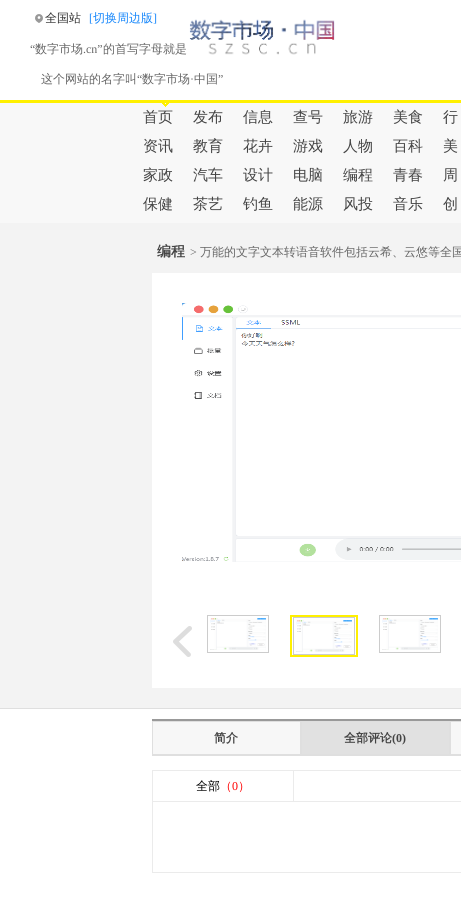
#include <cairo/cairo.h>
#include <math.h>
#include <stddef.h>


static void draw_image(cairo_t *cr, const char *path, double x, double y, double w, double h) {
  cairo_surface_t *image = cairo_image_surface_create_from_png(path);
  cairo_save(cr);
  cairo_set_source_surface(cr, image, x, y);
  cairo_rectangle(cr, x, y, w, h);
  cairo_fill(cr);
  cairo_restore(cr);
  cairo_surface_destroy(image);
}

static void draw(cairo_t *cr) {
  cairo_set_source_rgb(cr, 1, 1, 1);
  cairo_paint(cr);
  draw_image(cr, "images/1.png", 35, 14, 8, 9);
  draw_image(cr, "images/2.png", 189, 19, 146, 36);
  cairo_set_source_rgb(cr, 248 / 255.0, 248 / 255.0, 248 / 255.0);
  cairo_rectangle(cr, 0, 103, 461, 120);
  cairo_fill(cr);
  cairo_set_source_rgb(cr, 1, 240 / 255.0, 0);
  cairo_rectangle(cr, 0, 100, 461, 3);
  cairo_fill(cr);
  draw_image(cr, "images/3.png", 162, 103, 7, 4);
  cairo_set_source_rgb(cr, 243 / 255.0, 243 / 255.0, 243 / 255.0);
  cairo_rectangle(cr, 0, 223, 461, 485);
  cairo_fill(cr);
  cairo_set_source_rgb(cr, 223 / 255.0, 223 / 255.0, 223 / 255.0);
  cairo_rectangle(cr, 0, 708, 461, 1);
  cairo_fill(cr);
  cairo_set_source_rgb(cr, 1, 1, 1);
  cairo_rectangle(cr, 152, 273, 309, 415);
  cairo_fill(cr);
  draw_image(cr, "images/4.png", 182, 303, 279, 259);
  draw_image(cr, "images/5.png", 173, 626, 19, 31);
  cairo_rectangle(cr, 207.5, 615.5, 61, 37);
  cairo_set_source_rgb(cr, 204 / 255.0, 204 / 255.0, 204 / 255.0);
  cairo_set_line_width(cr, 1);
  cairo_stroke(cr);
  draw_image(cr, "images/6.png", 210, 618, 56, 32);
  cairo_rectangle(cr, 291, 616, 66, 40);
  cairo_set_source_rgb(cr, 1, 240 / 255.0, 0);
  cairo_set_line_width(cr, 2);
  cairo_stroke(cr);
  cairo_rectangle(cr, 293.5, 617.5, 61, 37);
  cairo_set_source_rgb(cr, 204 / 255.0, 204 / 255.0, 204 / 255.0);
  cairo_set_line_width(cr, 1);
  cairo_stroke(cr);
  draw_image(cr, "images/6.png", 296, 620, 56, 32);
  cairo_rectangle(cr, 379.5, 615.5, 61, 37);
  cairo_stroke(cr);
  draw_image(cr, "images/6.png", 382, 618, 56, 32);
  cairo_set_source_rgb(cr, 247 / 255.0, 247 / 255.0, 247 / 255.0);
  cairo_rectangle(cr, 153, 722, 308, 32);
  cairo_fill(cr);
  cairo_set_source_rgb(cr, 153 / 255.0, 153 / 255.0, 153 / 255.0);
  cairo_rectangle(cr, 152, 719, 309, 2);
  cairo_fill(cr);
  cairo_set_source_rgb(cr, 223 / 255.0, 223 / 255.0, 223 / 255.0);
  cairo_rectangle(cr, 152, 754, 309, 1);
  cairo_fill(cr);
  cairo_rectangle(cr, 152.5, 721.5, 148, 34);
  cairo_stroke(cr);
  cairo_set_source_rgb(cr, 225 / 255.0, 225 / 255.0, 225 / 255.0);
  cairo_rectangle(cr, 302, 722, 147, 32);
  cairo_fill(cr);
  cairo_rectangle(cr, 301.5, 721.5, 148, 34);
  cairo_set_source_rgb(cr, 223 / 255.0, 223 / 255.0, 223 / 255.0);
  cairo_stroke(cr);
  cairo_rectangle(cr, 450.5, 721.5, 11, 34);
  cairo_stroke(cr);
  cairo_rectangle(cr, 152.5, 770.5, 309, 102);
  cairo_set_source_rgb(cr, 235 / 255.0, 235 / 255.0, 235 / 255.0);
  cairo_stroke(cr);
  cairo_rectangle(cr, 153, 801, 308, 1);
  cairo_fill(cr);
  cairo_rectangle(cr, 293, 771, 1, 30);
  cairo_fill(cr);
  cairo_select_font_face(cr, "WenQuanYi Zen Hei Medium", CAIRO_FONT_SLANT_NORMAL, CAIRO_FONT_WEIGHT_NORMAL);
  cairo_set_font_size(cr, 12);
  cairo_set_source_rgb(cr, 51 / 255.0, 51 / 255.0, 51 / 255.0);
  cairo_move_to(cr, 45, 22);
  cairo_show_text(cr, "全国站");
  cairo_select_font_face(cr, "Liberation Serif", CAIRO_FONT_SLANT_NORMAL, CAIRO_FONT_WEIGHT_NORMAL);
  cairo_set_source_rgb(cr, 23 / 255.0, 135 / 255.0, 251 / 255.0);
  cairo_move_to(cr, 89, 22);
  cairo_show_text(cr, "[");
  cairo_select_font_face(cr, "WenQuanYi Zen Hei Medium", CAIRO_FONT_SLANT_NORMAL, CAIRO_FONT_WEIGHT_NORMAL);
  cairo_move_to(cr, 93, 22);
  cairo_show_text(cr, "切换周边版");
  cairo_select_font_face(cr, "Liberation Serif", CAIRO_FONT_SLANT_NORMAL, CAIRO_FONT_WEIGHT_NORMAL);
  cairo_move_to(cr, 153, 22);
  cairo_show_text(cr, "]");
  cairo_set_source_rgb(cr, 102 / 255.0, 102 / 255.0, 102 / 255.0);
  cairo_move_to(cr, 30, 53);
  cairo_show_text(cr, "“");
  cairo_select_font_face(cr, "WenQuanYi Zen Hei Medium", CAIRO_FONT_SLANT_NORMAL, CAIRO_FONT_WEIGHT_NORMAL);
  cairo_move_to(cr, 35, 53);
  cairo_show_text(cr, "数字市场");
  cairo_select_font_face(cr, "Liberation Serif", CAIRO_FONT_SLANT_NORMAL, CAIRO_FONT_WEIGHT_NORMAL);
  cairo_move_to(cr, 83, 53);
  cairo_show_text(cr, ".cn”");
  cairo_select_font_face(cr, "WenQuanYi Zen Hei Medium", CAIRO_FONT_SLANT_NORMAL, CAIRO_FONT_WEIGHT_NORMAL);
  cairo_move_to(cr, 103, 53);
  cairo_show_text(cr, "的首写字母就是");
  cairo_move_to(cr, 41, 83);
  cairo_show_text(cr, "这个网站的名字叫");
  cairo_select_font_face(cr, "Liberation Serif", CAIRO_FONT_SLANT_NORMAL, CAIRO_FONT_WEIGHT_NORMAL);
  cairo_move_to(cr, 137, 83);
  cairo_show_text(cr, "“");
  cairo_select_font_face(cr, "WenQuanYi Zen Hei Medium", CAIRO_FONT_SLANT_NORMAL, CAIRO_FONT_WEIGHT_NORMAL);
  cairo_move_to(cr, 142, 83);
  cairo_show_text(cr, "数字市场");
  cairo_select_font_face(cr, "Liberation Serif", CAIRO_FONT_SLANT_NORMAL, CAIRO_FONT_WEIGHT_NORMAL);
  cairo_move_to(cr, 190, 83);
  cairo_show_text(cr, "·");
  cairo_select_font_face(cr, "WenQuanYi Zen Hei Medium", CAIRO_FONT_SLANT_NORMAL, CAIRO_FONT_WEIGHT_NORMAL);
  cairo_move_to(cr, 194, 83);
  cairo_show_text(cr, "中国");
  cairo_select_font_face(cr, "Liberation Serif", CAIRO_FONT_SLANT_NORMAL, CAIRO_FONT_WEIGHT_NORMAL);
  cairo_move_to(cr, 218, 83);
  cairo_show_text(cr, "”");
  cairo_select_font_face(cr, "WenQuanYi Zen Hei Medium", CAIRO_FONT_SLANT_NORMAL, CAIRO_FONT_WEIGHT_NORMAL);
  cairo_set_font_size(cr, 15);
  cairo_set_source_rgb(cr, 68 / 255.0, 68 / 255.0, 68 / 255.0);
  cairo_move_to(cr, 143, 122);
  cairo_show_text(cr, "首页");
  cairo_move_to(cr, 193, 122);
  cairo_show_text(cr, "发布");
  cairo_move_to(cr, 243, 122);
  cairo_show_text(cr, "信息");
  cairo_move_to(cr, 293, 122);
  cairo_show_text(cr, "查号");
  cairo_move_to(cr, 343, 122);
  cairo_show_text(cr, "旅游");
  cairo_move_to(cr, 393, 122);
  cairo_show_text(cr, "美食");
  cairo_move_to(cr, 443, 122);
  cairo_show_text(cr, "行");
  cairo_move_to(cr, 143, 151);
  cairo_show_text(cr, "资讯");
  cairo_move_to(cr, 193, 151);
  cairo_show_text(cr, "教育");
  cairo_move_to(cr, 243, 151);
  cairo_show_text(cr, "花卉");
  cairo_move_to(cr, 293, 151);
  cairo_show_text(cr, "游戏");
  cairo_move_to(cr, 343, 151);
  cairo_show_text(cr, "人物");
  cairo_move_to(cr, 393, 151);
  cairo_show_text(cr, "百科");
  cairo_move_to(cr, 443, 151);
  cairo_show_text(cr, "美");
  cairo_move_to(cr, 143, 180);
  cairo_show_text(cr, "家政");
  cairo_move_to(cr, 193, 180);
  cairo_show_text(cr, "汽车");
  cairo_move_to(cr, 243, 180);
  cairo_show_text(cr, "设计");
  cairo_move_to(cr, 293, 180);
  cairo_show_text(cr, "电脑");
  cairo_move_to(cr, 343, 180);
  cairo_show_text(cr, "编程");
  cairo_move_to(cr, 393, 180);
  cairo_show_text(cr, "青春");
  cairo_move_to(cr, 443, 180);
  cairo_show_text(cr, "周");
  cairo_move_to(cr, 143, 209);
  cairo_show_text(cr, "保健");
  cairo_move_to(cr, 193, 209);
  cairo_show_text(cr, "茶艺");
  cairo_move_to(cr, 243, 209);
  cairo_show_text(cr, "钓鱼");
  cairo_move_to(cr, 293, 209);
  cairo_show_text(cr, "能源");
  cairo_move_to(cr, 343, 209);
  cairo_show_text(cr, "风投");
  cairo_move_to(cr, 393, 209);
  cairo_show_text(cr, "音乐");
  cairo_move_to(cr, 443, 209);
  cairo_show_text(cr, "创");
  cairo_select_font_face(cr, "WenQuanYi Zen Hei", CAIRO_FONT_SLANT_NORMAL, CAIRO_FONT_WEIGHT_BOLD);
  cairo_set_font_size(cr, 14);
  cairo_move_to(cr, 157, 256);
  cairo_show_text(cr, "编程");
  cairo_select_font_face(cr, "Liberation Serif", CAIRO_FONT_SLANT_NORMAL, CAIRO_FONT_WEIGHT_NORMAL);
  cairo_set_font_size(cr, 12);
  cairo_set_source_rgb(cr, 102 / 255.0, 102 / 255.0, 102 / 255.0);
  cairo_move_to(cr, 190, 256);
  cairo_show_text(cr, ">");
  cairo_select_font_face(cr, "WenQuanYi Zen Hei Medium", CAIRO_FONT_SLANT_NORMAL, CAIRO_FONT_WEIGHT_NORMAL);
  cairo_move_to(cr, 200, 256);
  cairo_show_text(cr, "万能的文字文本转语音软件包括云希、云悠等全国");
  cairo_select_font_face(cr, "WenQuanYi Zen Hei", CAIRO_FONT_SLANT_NORMAL, CAIRO_FONT_WEIGHT_BOLD);
  cairo_set_source_rgb(cr, 68 / 255.0, 68 / 255.0, 68 / 255.0);
  cairo_move_to(cr, 214, 742);
  cairo_show_text(cr, "简介");
  cairo_move_to(cr, 344, 742);
  cairo_show_text(cr, "全部评论");
  cairo_select_font_face(cr, "Liberation Serif", CAIRO_FONT_SLANT_NORMAL, CAIRO_FONT_WEIGHT_BOLD);
  cairo_move_to(cr, 392, 742);
  cairo_show_text(cr, "(0)");
  cairo_select_font_face(cr, "WenQuanYi Zen Hei Medium", CAIRO_FONT_SLANT_NORMAL, CAIRO_FONT_WEIGHT_NORMAL);
  cairo_set_source_rgb(cr, 0, 0, 0);
  cairo_move_to(cr, 196, 790);
  cairo_show_text(cr, "全部");
  cairo_set_source_rgb(cr, 1, 0, 0);
  cairo_move_to(cr, 220, 790);
  cairo_show_text(cr, "（");
  cairo_select_font_face(cr, "Liberation Serif", CAIRO_FONT_SLANT_NORMAL, CAIRO_FONT_WEIGHT_NORMAL);
  cairo_move_to(cr, 232, 790);
  cairo_show_text(cr, "0");
  cairo_select_font_face(cr, "WenQuanYi Zen Hei Medium", CAIRO_FONT_SLANT_NORMAL, CAIRO_FONT_WEIGHT_NORMAL);
  cairo_move_to(cr, 238, 790);
  cairo_show_text(cr, "）");
}

int main(void) {
  cairo_surface_t *surface = cairo_image_surface_create(CAIRO_FORMAT_RGB24, 461, 908);
  cairo_t *cr = cairo_create(surface);
  cairo_font_options_t *options = cairo_font_options_create();
  cairo_font_options_set_hint_metrics(options, CAIRO_HINT_METRICS_OFF);
  cairo_font_options_set_hint_style(options, CAIRO_HINT_STYLE_NONE);
  cairo_set_font_options(cr, options);
  cairo_set_miter_limit(cr, 4);
  draw(cr);
  cairo_surface_write_to_png(surface, "out.png");
  cairo_font_options_destroy(options);
  cairo_destroy(cr);
  cairo_surface_destroy(surface);
  return 0;
}
